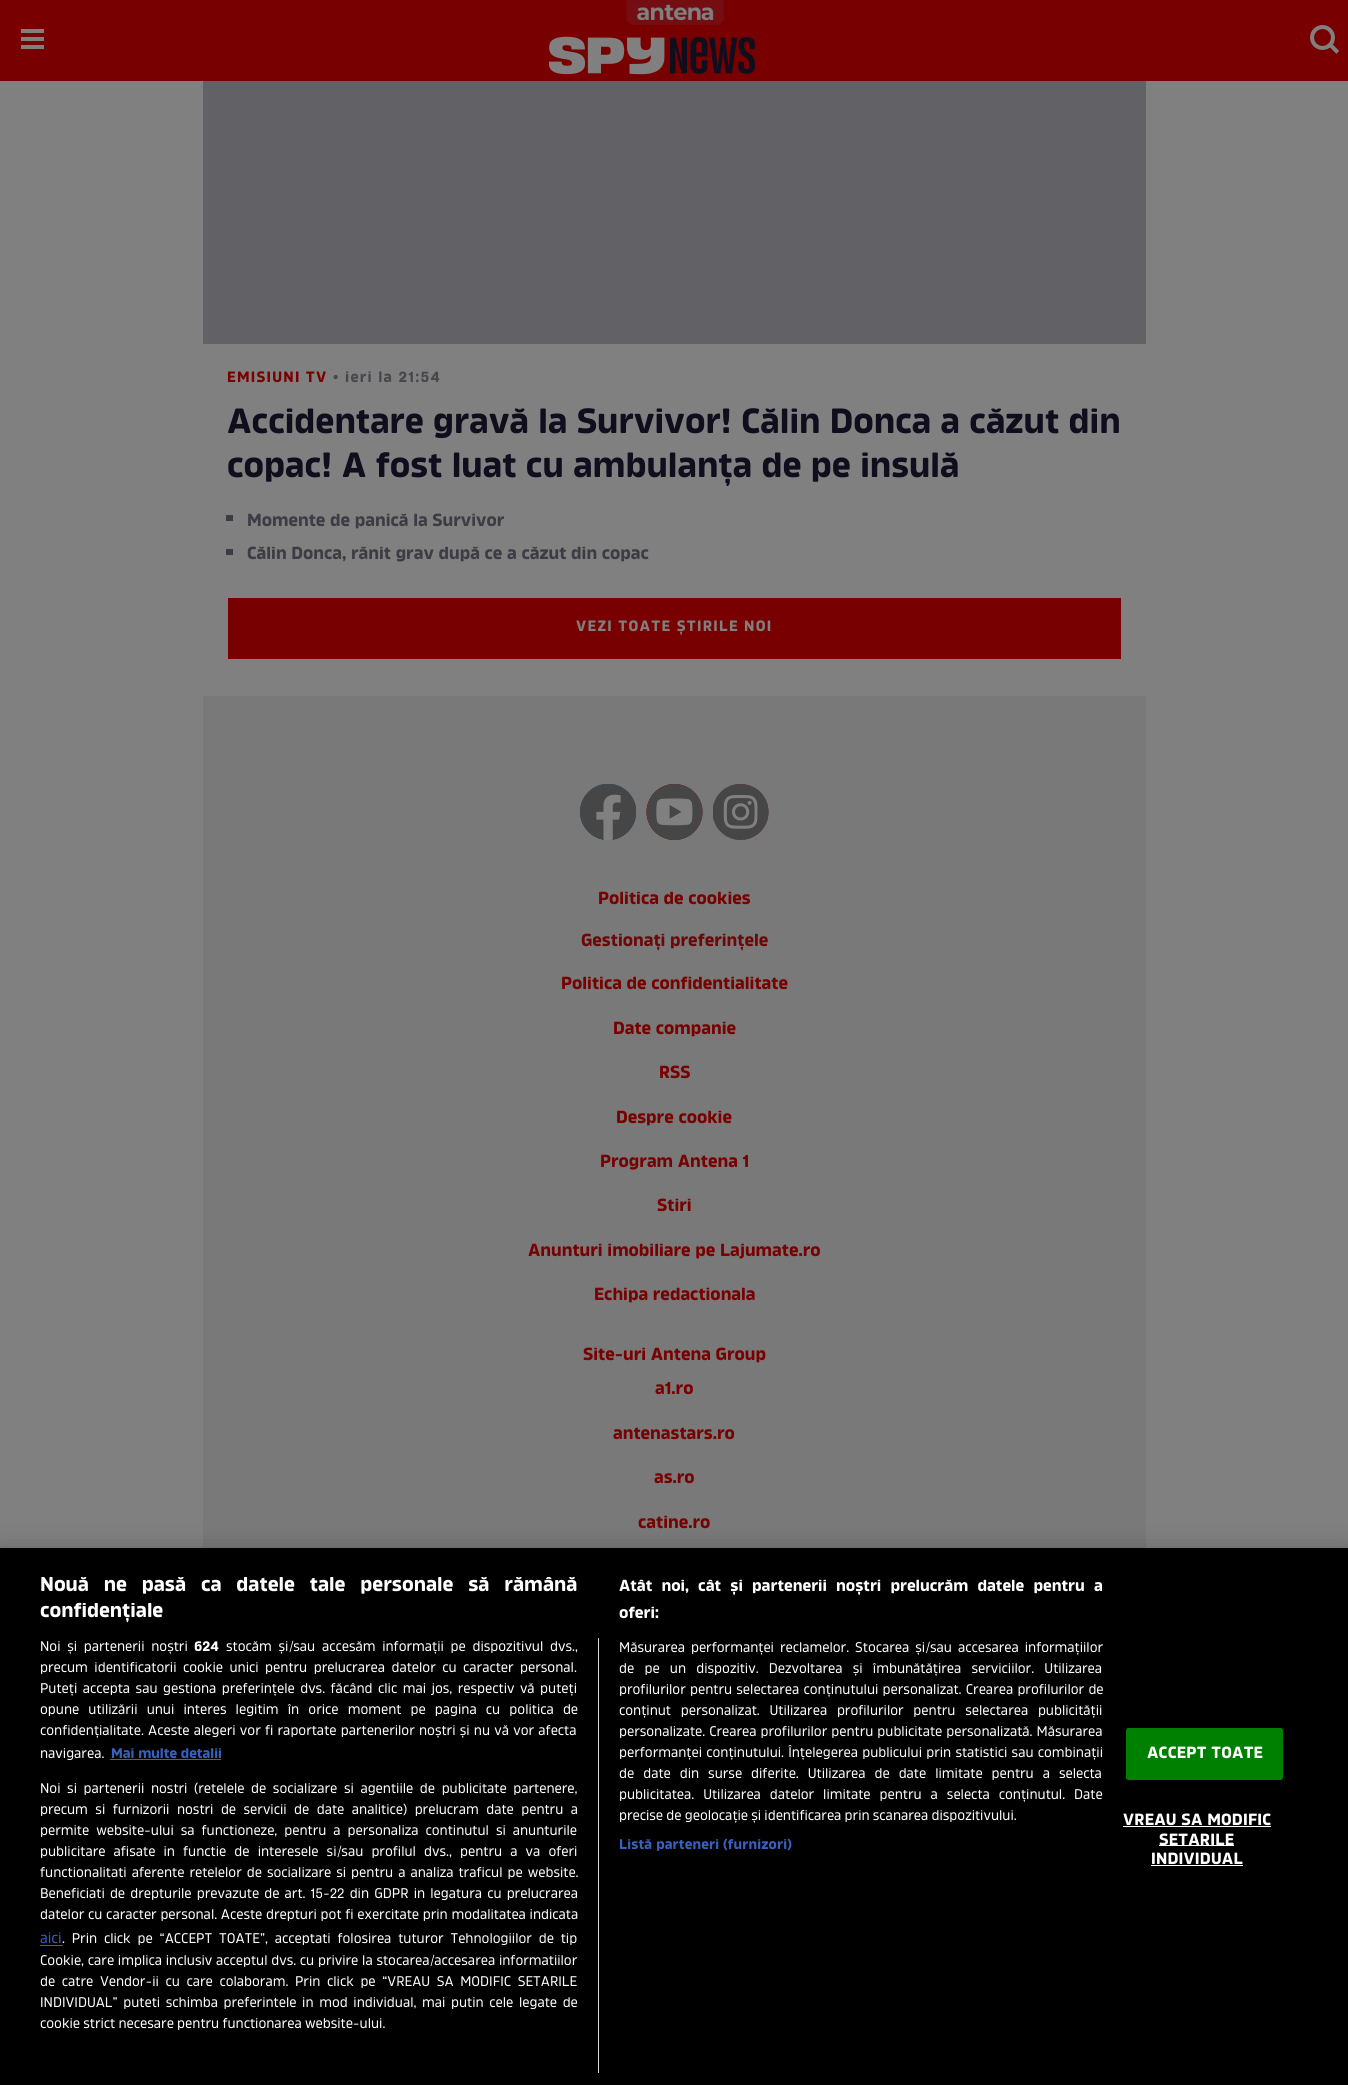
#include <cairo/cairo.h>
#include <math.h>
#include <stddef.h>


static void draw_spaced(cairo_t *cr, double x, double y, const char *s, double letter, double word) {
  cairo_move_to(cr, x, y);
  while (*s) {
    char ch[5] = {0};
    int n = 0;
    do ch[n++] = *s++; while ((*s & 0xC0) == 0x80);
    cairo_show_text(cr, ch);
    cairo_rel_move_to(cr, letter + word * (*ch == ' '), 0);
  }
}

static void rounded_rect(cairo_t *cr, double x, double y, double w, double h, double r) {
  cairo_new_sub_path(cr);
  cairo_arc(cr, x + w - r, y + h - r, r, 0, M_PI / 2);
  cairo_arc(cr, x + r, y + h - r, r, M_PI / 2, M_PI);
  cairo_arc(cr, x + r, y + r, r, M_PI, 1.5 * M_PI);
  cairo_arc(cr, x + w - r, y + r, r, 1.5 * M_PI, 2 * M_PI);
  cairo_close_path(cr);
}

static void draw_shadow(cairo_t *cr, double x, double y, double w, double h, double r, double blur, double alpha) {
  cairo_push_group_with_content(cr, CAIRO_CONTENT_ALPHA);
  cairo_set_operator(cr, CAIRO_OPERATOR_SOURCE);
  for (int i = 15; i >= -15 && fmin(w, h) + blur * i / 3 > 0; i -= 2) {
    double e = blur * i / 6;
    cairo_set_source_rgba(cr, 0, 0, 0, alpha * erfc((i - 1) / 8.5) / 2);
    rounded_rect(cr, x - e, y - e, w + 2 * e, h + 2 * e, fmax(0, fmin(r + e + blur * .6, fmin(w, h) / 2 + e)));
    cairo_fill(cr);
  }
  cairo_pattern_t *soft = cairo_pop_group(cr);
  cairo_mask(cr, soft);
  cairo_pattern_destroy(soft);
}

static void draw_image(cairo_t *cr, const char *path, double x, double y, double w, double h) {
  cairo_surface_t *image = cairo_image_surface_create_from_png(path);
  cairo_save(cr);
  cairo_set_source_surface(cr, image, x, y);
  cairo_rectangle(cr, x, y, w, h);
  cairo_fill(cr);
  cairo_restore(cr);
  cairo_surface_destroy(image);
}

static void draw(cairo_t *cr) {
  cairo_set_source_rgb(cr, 128 / 255.0, 128 / 255.0, 128 / 255.0);
  cairo_paint(cr);
  cairo_set_source_rgb(cr, 121 / 255.0, 0, 0);
  cairo_rectangle(cr, 0, 0, 1348, 81);
  cairo_fill(cr);
  draw_image(cr, "images/1.png", 626, 0, 98, 25);
  cairo_set_source_rgb(cr, 128 / 255.0, 128 / 255.0, 128 / 255.0);
  cairo_rectangle(cr, 21, 29, 23, 4);
  cairo_fill(cr);
  cairo_rectangle(cr, 21, 37, 23, 4);
  cairo_fill(cr);
  cairo_rectangle(cr, 21, 45, 23, 4);
  cairo_fill(cr);
  draw_image(cr, "images/2.png", 1310, 25, 30, 29);
  draw_image(cr, "images/3.png", 549, 36, 206, 39);
  cairo_set_source_rgb(cr, 98 / 255.0, 97 / 255.0, 101 / 255.0);
  cairo_rectangle(cr, 203, 81, 943, 263);
  cairo_fill(cr);
  cairo_set_source_rgb(cr, 61 / 255.0, 59 / 255.0, 68 / 255.0);
  cairo_rectangle(cr, 226, 515, 7, 6);
  cairo_fill(cr);
  cairo_rectangle(cr, 226, 549, 7, 6);
  cairo_fill(cr);
  cairo_set_source_rgb(cr, 121 / 255.0, 0, 0);
  cairo_rectangle(cr, 228, 598, 893, 61);
  cairo_fill(cr);
  cairo_set_source_rgb(cr, 121 / 255.0, 121 / 255.0, 122 / 255.0);
  cairo_rectangle(cr, 203, 696, 943, 852);
  cairo_fill(cr);
  draw_image(cr, "images/4.png", 580, 784, 56, 56);
  draw_image(cr, "images/5.png", 580, 784, 56, 56);
  draw_image(cr, "images/6.png", 646, 784, 57, 56);
  draw_image(cr, "images/7.png", 646, 784, 57, 56);
  draw_image(cr, "images/8.png", 713, 784, 56, 56);
  draw_image(cr, "images/9.png", 713, 784, 56, 56);
  cairo_set_source_rgb(cr, 0, 0, 0);
  draw_shadow(cr, 0, 1548, 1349, 537, 0, 11, 0.2);
  cairo_set_source_rgb(cr, 0, 0, 0);
  cairo_rectangle(cr, 0, 1548, 1348, 537);
  cairo_fill(cr);
  cairo_set_source_rgb(cr, 216 / 255.0, 216 / 255.0, 216 / 255.0);
  cairo_rectangle(cr, 598, 1638, 1, 435);
  cairo_fill(cr);
  cairo_set_source_rgb(cr, 56 / 255.0, 96 / 255.0, 190 / 255.0);
  cairo_rectangle(cr, 110, 1759, 111, 1);
  cairo_fill(cr);
  cairo_rectangle(cr, 40, 1945, 23, 1);
  cairo_fill(cr);
  cairo_set_source_rgb(cr, 0, 128 / 255.0, 0);
  rounded_rect(cr, 1126.5, 1728.5, 156, 51, 2);
  cairo_fill_preserve(cr);
  cairo_set_line_width(cr, 1);
  cairo_stroke(cr);
  cairo_set_source_rgb(cr, 1, 1, 1);
  cairo_rectangle(cr, 1123, 1826, 148, 1);
  cairo_fill(cr);
  cairo_rectangle(cr, 1159, 1845, 75, 1);
  cairo_fill(cr);
  cairo_rectangle(cr, 1151, 1865, 92, 1);
  cairo_fill(cr);
  cairo_select_font_face(cr, "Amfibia", CAIRO_FONT_SLANT_NORMAL, CAIRO_FONT_WEIGHT_BOLD);
  cairo_set_font_size(cr, 15);
  cairo_set_source_rgb(cr, 121 / 255.0, 0, 0);
  draw_spaced(cr, 227, 382, "EMISIUNI TV", 1.25, 0);
  cairo_select_font_face(cr, "Liberation Sans", CAIRO_FONT_SLANT_NORMAL, CAIRO_FONT_WEIGHT_BOLD);
  cairo_set_source_rgb(cr, 72 / 255.0, 71 / 255.0, 78 / 255.0);
  draw_spaced(cr, 333, 382, "•", 1.25, 0);
  cairo_select_font_face(cr, "Amfibia", CAIRO_FONT_SLANT_NORMAL, CAIRO_FONT_WEIGHT_BOLD);
  draw_spaced(cr, 345, 382, "ieri la 21:54", 1.25, 0);
  cairo_set_font_size(cr, 35);
  cairo_set_source_rgb(cr, 16 / 255.0, 13 / 255.0, 28 / 255.0);
  cairo_move_to(cr, 227, 433);
  cairo_show_text(cr, "Accidentare gravă la Survivor! Călin Donca a căzut din");
  cairo_move_to(cr, 227, 477);
  cairo_show_text(cr, "copac! A fost luat cu ambulanța de pe insulă");
  cairo_set_font_size(cr, 17.5);
  cairo_set_source_rgb(cr, 61 / 255.0, 59 / 255.0, 68 / 255.0);
  cairo_move_to(cr, 247, 526);
  cairo_show_text(cr, "Momente de panică la Survivor");
  cairo_move_to(cr, 247, 559);
  cairo_show_text(cr, "Călin Donca, rănit grav după ce a căzut din copac");
  cairo_set_font_size(cr, 15);
  cairo_set_source_rgb(cr, 128 / 255.0, 128 / 255.0, 128 / 255.0);
  draw_spaced(cr, 576, 631, "VEZI TOATE ȘTIRILE NOI", 1.25, 0);
  cairo_set_font_size(cr, 17.5);
  cairo_set_source_rgb(cr, 121 / 255.0, 0, 0);
  cairo_move_to(cr, 598, 904);
  cairo_show_text(cr, "Politica de cookies");
  cairo_set_source_rgb(cr, 109 / 255.0, 8 / 255.0, 8 / 255.0);
  cairo_move_to(cr, 581, 946);
  cairo_show_text(cr, "Gestionați preferințele");
  cairo_set_source_rgb(cr, 121 / 255.0, 0, 0);
  cairo_move_to(cr, 561, 989);
  cairo_show_text(cr, "Politica de confidentialitate");
  cairo_move_to(cr, 613, 1034);
  cairo_show_text(cr, "Date companie");
  cairo_move_to(cr, 659, 1078);
  cairo_show_text(cr, "RSS");
  cairo_move_to(cr, 616, 1123);
  cairo_show_text(cr, "Despre cookie");
  cairo_move_to(cr, 600, 1167);
  cairo_show_text(cr, "Program Antena 1");
  cairo_move_to(cr, 657, 1211);
  cairo_show_text(cr, "Stiri");
  cairo_move_to(cr, 528, 1256);
  cairo_show_text(cr, "Anunturi imobiliare pe Lajumate.ro");
  cairo_move_to(cr, 594, 1300);
  cairo_show_text(cr, "Echipa redactionala");
  cairo_move_to(cr, 583, 1360);
  cairo_show_text(cr, "Site-uri Antena Group");
  cairo_move_to(cr, 655, 1394);
  cairo_show_text(cr, "a1.ro");
  cairo_move_to(cr, 613, 1439);
  cairo_show_text(cr, "antenastars.ro");
  cairo_move_to(cr, 654, 1483);
  cairo_show_text(cr, "as.ro");
  cairo_move_to(cr, 638, 1528);
  cairo_show_text(cr, "catine.ro");
  cairo_set_font_size(cr, 20);
  cairo_set_source_rgb(cr, 1, 1, 1);
  draw_spaced(cr, 40, 1591, "Nouă ne pasă ca datele tale personale să rămână", 0, 9.5);
  cairo_move_to(cr, 40, 1617);
  cairo_show_text(cr, "confidențiale");
  cairo_set_font_size(cr, 16);
  draw_spaced(cr, 619, 1591, "Atât noi, cât și partenerii noștri prelucrăm datele pentru a", 0, 4.9);
  cairo_move_to(cr, 619, 1618);
  cairo_show_text(cr, "oferi:");
  cairo_select_font_face(cr, "Amfibia", CAIRO_FONT_SLANT_NORMAL, CAIRO_FONT_WEIGHT_NORMAL);
  cairo_set_font_size(cr, 14);
  draw_spaced(cr, 619, 1652, "Măsurarea performanței reclamelor. Stocarea și/sau accesarea informațiilor", 0, 2.75);
  draw_spaced(cr, 619, 1673, "de pe un dispozitiv. Dezvoltarea și îmbunătățirea serviciilor. Utilizarea", 0, 7);
  draw_spaced(cr, 619, 1694, "profilurilor pentru selectarea conținutului personalizat. Crearea profilurilor de", 0, 1);
  draw_spaced(cr, 619, 1715, "conținut personalizat. Utilizarea profilurilor pentru selectarea publicității", 0, 6.5);
  draw_spaced(cr, 619, 1736, "personalizate. Crearea profilurilor pentru publicitate personalizată. Măsurarea", 0, 0.75);
  draw_spaced(cr, 619, 1757, "performanței conținutului. Înțelegerea publicului prin statistici sau combinații", 0, 1);
  draw_spaced(cr, 619, 1778, "de date din surse diferite. Utilizarea de date limitate pentru a selecta", 0, 5.75);
  draw_spaced(cr, 619, 1799, "publicitatea. Utilizarea datelor limitate pentru a selecta conținutul. Date", 0, 5.75);
  cairo_move_to(cr, 619, 1820);
  cairo_show_text(cr, "precise de geolocație și identificarea prin scanarea dispozitivului.");
  cairo_select_font_face(cr, "Amfibia", CAIRO_FONT_SLANT_NORMAL, CAIRO_FONT_WEIGHT_BOLD);
  cairo_set_source_rgb(cr, 56 / 255.0, 96 / 255.0, 190 / 255.0);
  draw_spaced(cr, 619, 1849, "Listă parteneri (furnizori)", 0.15, 0);
  cairo_select_font_face(cr, "Amfibia", CAIRO_FONT_SLANT_NORMAL, CAIRO_FONT_WEIGHT_NORMAL);
  cairo_set_source_rgb(cr, 1, 1, 1);
  draw_spaced(cr, 40, 1651, "Noi și partenerii noștri", 0, 3.5);
  cairo_select_font_face(cr, "Amfibia", CAIRO_FONT_SLANT_NORMAL, CAIRO_FONT_WEIGHT_BOLD);
  cairo_move_to(cr, 194, 1651);
  cairo_show_text(cr, "624");
  cairo_select_font_face(cr, "Amfibia", CAIRO_FONT_SLANT_NORMAL, CAIRO_FONT_WEIGHT_NORMAL);
  draw_spaced(cr, 226, 1651, "stocăm și/sau accesăm informații pe dispozitivul dvs.,", 0, 3.5);
  draw_spaced(cr, 40, 1672, "precum identificatorii cookie unici pentru prelucrarea datelor cu caracter personal.", 0, 3.25);
  draw_spaced(cr, 40, 1693, "Puteți accepta sau gestiona preferințele dvs. făcând clic mai jos, respectiv vă puteți", 0, 2.25);
  draw_spaced(cr, 40, 1714, "opune utilizării unui interes legitim în orice moment pe pagina cu politica de", 0, 5.9);
  draw_spaced(cr, 40, 1735, "confidențialitate. Aceste alegeri vor fi raportate partenerilor noștri și nu vă vor afecta", 0, 1);
  cairo_move_to(cr, 40, 1758);
  cairo_show_text(cr, "navigarea.");
  cairo_select_font_face(cr, "Amfibia", CAIRO_FONT_SLANT_NORMAL, CAIRO_FONT_WEIGHT_BOLD);
  cairo_set_source_rgb(cr, 56 / 255.0, 96 / 255.0, 190 / 255.0);
  cairo_move_to(cr, 111, 1758);
  cairo_show_text(cr, "Mai multe detalii");
  cairo_select_font_face(cr, "Amfibia", CAIRO_FONT_SLANT_NORMAL, CAIRO_FONT_WEIGHT_NORMAL);
  cairo_set_source_rgb(cr, 1, 1, 1);
  draw_spaced(cr, 40, 1793, "Noi si partenerii nostri (retelele de socializare si agentiile de publicitate partenere,", 0, 3.4);
  draw_spaced(cr, 40, 1814, "precum si furnizorii nostri de servicii de date analitice) prelucram date pentru a", 0, 4.25);
  draw_spaced(cr, 40, 1835, "permite website-ului sa functioneze, pentru a personaliza continutul si anunturile", 0, 3.75);
  draw_spaced(cr, 40, 1856, "publicitare afisate in functie de interesele si/sau profilul dvs., pentru a va oferi", 0, 4.9);
  draw_spaced(cr, 40, 1877, "functionalitati aferente retelelor de socializare si pentru a analiza traficul pe website.", 0, 1.75);
  draw_spaced(cr, 40, 1898, "Beneficiati de drepturile prevazute de art. 15-22 din GDPR in legatura cu prelucrarea", 0, 1.9);
  draw_spaced(cr, 40, 1919, "datelor cu caracter personal. Aceste drepturi pot fi exercitate prin modalitatea indicata", 0, 0.5);
  cairo_set_font_size(cr, 15);
  cairo_set_source_rgb(cr, 56 / 255.0, 96 / 255.0, 190 / 255.0);
  cairo_move_to(cr, 40, 1943);
  cairo_show_text(cr, "aici");
  cairo_set_font_size(cr, 14);
  cairo_set_source_rgb(cr, 1, 1, 1);
  draw_spaced(cr, 62, 1943, ". Prin click pe “ACCEPT TOATE”, acceptati folosirea tuturor Tehnologiilor de tip", 0, 3.6);
  draw_spaced(cr, 40, 1965, "Cookie, care implica inclusiv acceptul dvs. cu privire la stocarea/accesarea informatiilor", 0, 0.5);
  draw_spaced(cr, 40, 1986, "de catre Vendor-ii cu care colaboram. Prin click pe “VREAU SA MODIFIC SETARILE", 0, 3.4);
  draw_spaced(cr, 40, 2007, "INDIVIDUAL” puteti schimba preferintele in mod individual, mai putin cele legate de", 0, 2.4);
  cairo_move_to(cr, 40, 2028);
  cairo_show_text(cr, "cookie strict necesare pentru functionarea website-ului.");
  cairo_select_font_face(cr, "Amfibia", CAIRO_FONT_SLANT_NORMAL, CAIRO_FONT_WEIGHT_BOLD);
  cairo_set_font_size(cr, 16.25);
  draw_spaced(cr, 1147, 1758, "ACCEPT TOATE", 0.2, 0);
  draw_spaced(cr, 1123, 1825, "VREAU SA MODIFIC", 0.2, 0);
  draw_spaced(cr, 1159, 1845, "SETARILE", 0.2, 0);
  draw_spaced(cr, 1151, 1864, "INDIVIDUAL", 0.2, 0);
}

int main(void) {
  cairo_surface_t *surface = cairo_image_surface_create(CAIRO_FORMAT_RGB24, 1348, 2085);
  cairo_t *cr = cairo_create(surface);
  cairo_font_options_t *options = cairo_font_options_create();
  cairo_font_options_set_hint_metrics(options, CAIRO_HINT_METRICS_OFF);
  cairo_font_options_set_hint_style(options, CAIRO_HINT_STYLE_NONE);
  cairo_set_font_options(cr, options);
  cairo_set_miter_limit(cr, 4);
  draw(cr);
  cairo_surface_write_to_png(surface, "out.png");
  cairo_font_options_destroy(options);
  cairo_destroy(cr);
  cairo_surface_destroy(surface);
  return 0;
}
